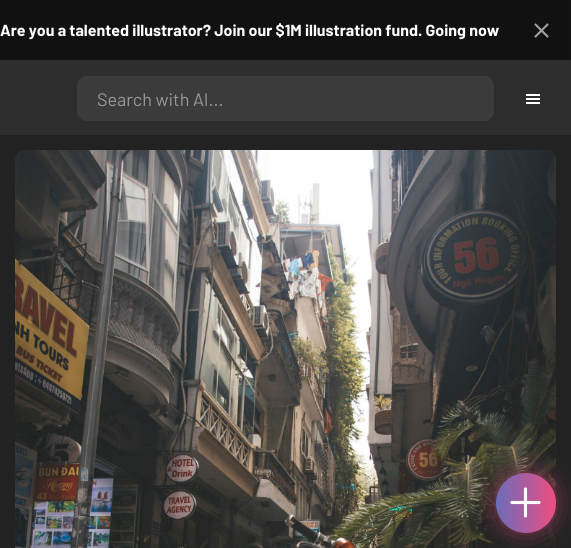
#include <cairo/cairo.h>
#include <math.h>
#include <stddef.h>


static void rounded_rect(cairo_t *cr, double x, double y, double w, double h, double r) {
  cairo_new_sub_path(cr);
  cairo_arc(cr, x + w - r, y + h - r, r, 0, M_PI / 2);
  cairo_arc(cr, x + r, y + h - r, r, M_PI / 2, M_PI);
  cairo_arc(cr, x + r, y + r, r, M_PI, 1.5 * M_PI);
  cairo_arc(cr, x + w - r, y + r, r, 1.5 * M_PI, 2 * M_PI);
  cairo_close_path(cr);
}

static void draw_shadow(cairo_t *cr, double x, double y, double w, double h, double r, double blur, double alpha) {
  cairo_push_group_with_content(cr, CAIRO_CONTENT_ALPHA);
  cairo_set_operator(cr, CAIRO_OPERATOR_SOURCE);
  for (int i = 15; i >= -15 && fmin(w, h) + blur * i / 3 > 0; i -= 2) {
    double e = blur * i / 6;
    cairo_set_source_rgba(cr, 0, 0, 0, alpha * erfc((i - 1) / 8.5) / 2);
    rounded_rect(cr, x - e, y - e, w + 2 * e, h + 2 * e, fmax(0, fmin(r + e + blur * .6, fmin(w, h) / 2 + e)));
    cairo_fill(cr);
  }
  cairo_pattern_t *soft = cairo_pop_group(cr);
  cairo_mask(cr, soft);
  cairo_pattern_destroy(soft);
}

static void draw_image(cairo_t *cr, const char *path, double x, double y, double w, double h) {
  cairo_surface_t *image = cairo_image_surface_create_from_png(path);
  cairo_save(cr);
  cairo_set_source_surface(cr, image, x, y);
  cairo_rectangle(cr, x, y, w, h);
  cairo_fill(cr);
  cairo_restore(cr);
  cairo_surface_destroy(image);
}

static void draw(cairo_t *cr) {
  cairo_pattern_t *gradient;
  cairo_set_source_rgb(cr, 34 / 255.0, 34 / 255.0, 34 / 255.0);
  cairo_paint(cr);
  cairo_set_source_rgb(cr, 17 / 255.0, 17 / 255.0, 17 / 255.0);
  cairo_rectangle(cr, 0, 0, 511, 60);
  cairo_fill(cr);
  cairo_set_source_rgb(cr, 45 / 255.0, 45 / 255.0, 45 / 255.0);
  cairo_rectangle(cr, 0, 60, 571, 75);
  cairo_fill(cr);
  cairo_set_source_rgb(cr, 59 / 255.0, 59 / 255.0, 59 / 255.0);
  rounded_rect(cr, 77, 76, 417, 45, 10);
  cairo_fill(cr);
  cairo_save(cr);
  cairo_rectangle(cr, 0, 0, 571, 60);
  cairo_clip(cr);
  cairo_set_source_rgb(cr, 17 / 255.0, 17 / 255.0, 17 / 255.0);
  draw_shadow(cr, 501, -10, 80, 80, 0, 5, 1);
  cairo_restore(cr);
  draw_image(cr, "images/1.png", 534, 23, 15, 15);
  cairo_set_source_rgb(cr, 49 / 255.0, 49 / 255.0, 49 / 255.0);
  rounded_rect(cr, 15, 150, 541, 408, 10);
  cairo_fill(cr);
  draw_image(cr, "images/2.png", 15, 150, 541, 398);
  draw_image(cr, "images/3.png", 526, 94, 14, 10);
  cairo_set_source_rgb(cr, 239 / 255.0, 78 / 255.0, 129 / 255.0);
  draw_shadow(cr, 506, 483, 40, 40, 20, 15, 1);
  gradient = cairo_pattern_create_linear(466, 503, 556, 503);
  cairo_pattern_add_color_stop_rgba(gradient, 0, 40 / 255.0, 123 / 255.0, 215 / 255.0, 1);
  cairo_pattern_add_color_stop_rgba(gradient, 1, 239 / 255.0, 78 / 255.0, 129 / 255.0, 1);
  cairo_set_source(cr, gradient);
  cairo_pattern_destroy(gradient);
  cairo_arc(cr, 526, 503, 30, 0, 2 * M_PI);
  cairo_fill(cr);
  draw_image(cr, "images/4.png", 510, 487, 31, 31);
  cairo_select_font_face(cr, "Barlow", CAIRO_FONT_SLANT_NORMAL, CAIRO_FONT_WEIGHT_BOLD);
  cairo_set_font_size(cr, 16);
  cairo_set_source_rgb(cr, 1, 1, 1);
  cairo_move_to(cr, 0, 36);
  cairo_show_text(cr, "Are you a talented illustrator? Join our $1M illustration fund. Going now");
  cairo_select_font_face(cr, "Barlow", CAIRO_FONT_SLANT_NORMAL, CAIRO_FONT_WEIGHT_NORMAL);
  cairo_set_font_size(cr, 18);
  cairo_set_source_rgb(cr, 151 / 255.0, 151 / 255.0, 151 / 255.0);
  cairo_move_to(cr, 97, 106);
  cairo_show_text(cr, "Search with AI...");
}

int main(void) {
  cairo_surface_t *surface = cairo_image_surface_create(CAIRO_FORMAT_RGB24, 571, 548);
  cairo_t *cr = cairo_create(surface);
  cairo_font_options_t *options = cairo_font_options_create();
  cairo_font_options_set_hint_metrics(options, CAIRO_HINT_METRICS_OFF);
  cairo_font_options_set_hint_style(options, CAIRO_HINT_STYLE_NONE);
  cairo_set_font_options(cr, options);
  cairo_set_miter_limit(cr, 4);
  draw(cr);
  cairo_surface_write_to_png(surface, "out.png");
  cairo_font_options_destroy(options);
  cairo_destroy(cr);
  cairo_surface_destroy(surface);
  return 0;
}
